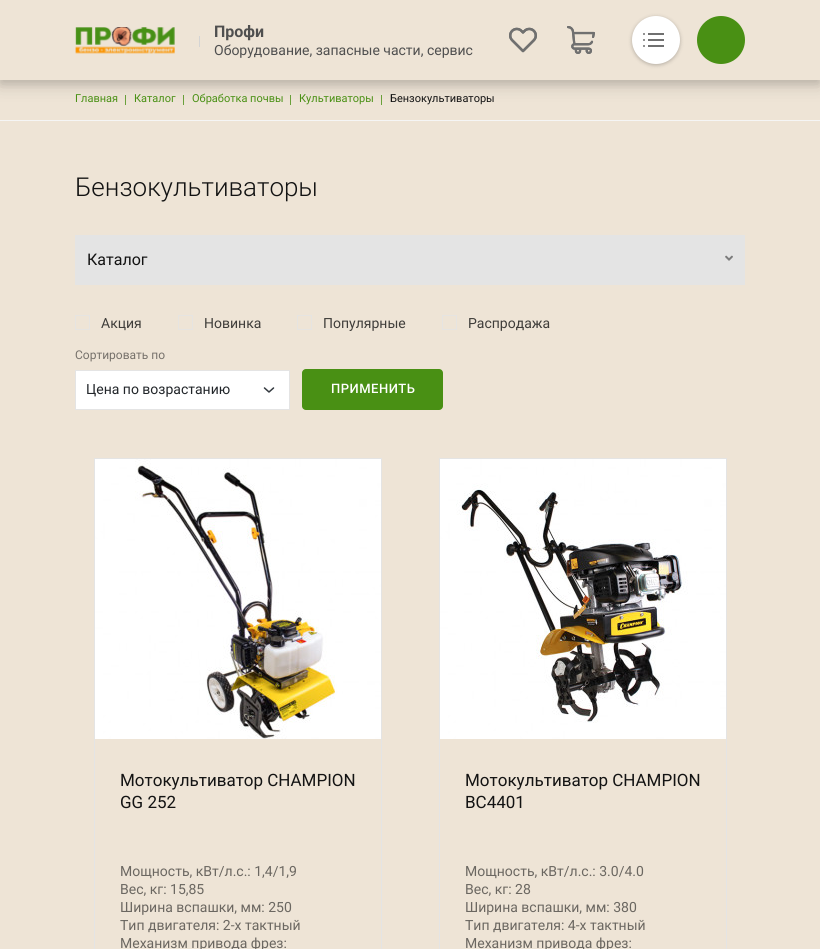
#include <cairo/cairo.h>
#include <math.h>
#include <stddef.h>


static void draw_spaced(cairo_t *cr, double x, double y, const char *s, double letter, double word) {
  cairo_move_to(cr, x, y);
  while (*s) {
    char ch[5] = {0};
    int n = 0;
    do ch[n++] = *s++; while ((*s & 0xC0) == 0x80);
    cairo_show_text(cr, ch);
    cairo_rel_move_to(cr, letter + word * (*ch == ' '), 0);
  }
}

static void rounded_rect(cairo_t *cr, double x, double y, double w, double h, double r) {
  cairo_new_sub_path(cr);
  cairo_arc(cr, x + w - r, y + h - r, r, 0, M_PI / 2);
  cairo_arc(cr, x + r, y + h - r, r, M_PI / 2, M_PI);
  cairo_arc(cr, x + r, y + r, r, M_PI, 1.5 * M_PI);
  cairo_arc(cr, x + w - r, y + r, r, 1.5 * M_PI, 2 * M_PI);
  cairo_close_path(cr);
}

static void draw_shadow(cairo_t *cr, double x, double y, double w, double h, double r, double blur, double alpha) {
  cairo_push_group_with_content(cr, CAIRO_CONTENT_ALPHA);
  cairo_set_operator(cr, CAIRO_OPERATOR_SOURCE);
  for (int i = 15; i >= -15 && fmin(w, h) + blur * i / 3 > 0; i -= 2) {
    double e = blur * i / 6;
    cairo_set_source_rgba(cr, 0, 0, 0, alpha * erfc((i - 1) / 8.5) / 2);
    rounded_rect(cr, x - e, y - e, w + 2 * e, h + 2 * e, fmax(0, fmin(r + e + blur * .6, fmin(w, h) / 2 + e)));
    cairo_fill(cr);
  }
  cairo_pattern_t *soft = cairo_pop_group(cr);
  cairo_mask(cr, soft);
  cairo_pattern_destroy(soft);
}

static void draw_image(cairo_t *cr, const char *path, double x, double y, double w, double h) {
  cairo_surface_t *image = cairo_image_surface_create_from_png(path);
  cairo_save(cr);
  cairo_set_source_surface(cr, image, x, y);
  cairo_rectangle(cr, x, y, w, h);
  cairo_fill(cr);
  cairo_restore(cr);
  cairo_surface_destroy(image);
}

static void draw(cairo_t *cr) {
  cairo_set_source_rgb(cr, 238 / 255.0, 228 / 255.0, 214 / 255.0);
  cairo_paint(cr);
  cairo_set_source_rgb(cr, 106 / 255.0, 161 / 255.0, 59 / 255.0);
  cairo_rectangle(cr, 125, 95, 1, 10);
  cairo_fill(cr);
  cairo_rectangle(cr, 183, 95, 1, 10);
  cairo_fill(cr);
  cairo_rectangle(cr, 290, 95, 1, 10);
  cairo_fill(cr);
  cairo_rectangle(cr, 381, 95, 1, 10);
  cairo_fill(cr);
  cairo_set_source_rgb(cr, 0, 0, 0);
  draw_shadow(cr, 0, 4, 820, 80, 0, 10, 0.15);
  draw_shadow(cr, 0, 4, 820, 80, 0, 5, 0.12);
  cairo_set_source_rgb(cr, 238 / 255.0, 228 / 255.0, 214 / 255.0);
  cairo_rectangle(cr, 0, 0, 820, 80);
  cairo_fill(cr);
  draw_image(cr, "images/1.png", 75, 27, 100, 27);
  cairo_set_source_rgb(cr, 212 / 255.0, 212 / 255.0, 212 / 255.0);
  cairo_rectangle(cr, 199, 36, 1, 11);
  cairo_fill(cr);
  draw_image(cr, "images/2.png", 509, 27, 28, 26);
  draw_image(cr, "images/3.png", 509, 27, 28, 26);
  draw_image(cr, "images/4.png", 567, 26, 28, 28);
  draw_image(cr, "images/5.png", 567, 26, 28, 28);
  cairo_set_source_rgb(cr, 0, 0, 0);
  draw_shadow(cr, 632, 17, 48, 48, 24, 2, 0.25);
  cairo_set_source_rgb(cr, 1, 1, 1);
  cairo_arc(cr, 656, 40, 24, 0, 2 * M_PI);
  cairo_fill(cr);
  cairo_set_source_rgb(cr, 112 / 255.0, 112 / 255.0, 112 / 255.0);
  cairo_rectangle(cr, 648, 33, 16, 2);
  cairo_fill(cr);
  cairo_arc(cr, 644, 34, 1, 0, 2 * M_PI);
  cairo_fill(cr);
  cairo_rectangle(cr, 648, 39, 16, 2);
  cairo_fill(cr);
  cairo_arc(cr, 644, 40, 1, 0, 2 * M_PI);
  cairo_fill(cr);
  cairo_rectangle(cr, 648, 45, 16, 2);
  cairo_fill(cr);
  cairo_arc(cr, 644, 46, 1, 0, 2 * M_PI);
  cairo_fill(cr);
  cairo_set_source_rgb(cr, 73 / 255.0, 144 / 255.0, 20 / 255.0);
  cairo_arc(cr, 721, 40, 24, 0, 2 * M_PI);
  cairo_fill(cr);
  cairo_set_source_rgb(cr, 245 / 255.0, 245 / 255.0, 245 / 255.0);
  cairo_rectangle(cr, 0, 120, 820, 1);
  cairo_fill(cr);
  cairo_set_source_rgb(cr, 228 / 255.0, 228 / 255.0, 228 / 255.0);
  cairo_rectangle(cr, 75, 235, 670, 50);
  cairo_fill(cr);
  draw_image(cr, "images/6.png", 725, 255, 8, 6);
  cairo_rectangle(cr, 75.5, 315.5, 14, 14);
  cairo_set_source_rgb(cr, 230 / 255.0, 228 / 255.0, 225 / 255.0);
  cairo_set_line_width(cr, 1);
  cairo_stroke(cr);
  rounded_rect(cr, 75.5, 315.5, 14, 14, 1.5);
  cairo_stroke(cr);
  cairo_rectangle(cr, 178.5, 315.5, 14, 14);
  cairo_stroke(cr);
  rounded_rect(cr, 178.5, 315.5, 14, 14, 1.5);
  cairo_stroke(cr);
  cairo_rectangle(cr, 297.5, 315.5, 14, 14);
  cairo_stroke(cr);
  rounded_rect(cr, 297.5, 315.5, 14, 14, 1.5);
  cairo_stroke(cr);
  cairo_rectangle(cr, 442.5, 315.5, 14, 14);
  cairo_stroke(cr);
  rounded_rect(cr, 442.5, 315.5, 14, 14, 1.5);
  cairo_stroke(cr);
  cairo_set_source_rgb(cr, 1, 1, 1);
  cairo_rectangle(cr, 76, 371, 213, 38);
  cairo_fill(cr);
  cairo_new_path(cr);
  cairo_move_to(cr, 264.5, 388);
  cairo_line_to(cr, 269, 392);
  cairo_line_to(cr, 273.5, 388);
  cairo_set_source_rgb(cr, 52 / 255.0, 58 / 255.0, 64 / 255.0);
  cairo_set_line_width(cr, 1.5);
  cairo_set_line_cap(cr, CAIRO_LINE_CAP_ROUND);
  cairo_set_line_join(cr, CAIRO_LINE_JOIN_ROUND);
  cairo_stroke(cr);
  cairo_rectangle(cr, 75.5, 370.5, 214, 39);
  cairo_set_source_rgb(cr, 228 / 255.0, 228 / 255.0, 228 / 255.0);
  cairo_set_line_width(cr, 1);
  cairo_set_line_cap(cr, CAIRO_LINE_CAP_BUTT);
  cairo_set_line_join(cr, CAIRO_LINE_JOIN_MITER);
  cairo_stroke(cr);
  cairo_set_source_rgb(cr, 73 / 255.0, 144 / 255.0, 20 / 255.0);
  rounded_rect(cr, 302, 369, 141, 41, 4);
  cairo_fill(cr);
  cairo_rectangle(cr, 94.5, 458.5, 287, 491);
  cairo_set_source_rgb(cr, 228 / 255.0, 228 / 255.0, 228 / 255.0);
  cairo_stroke(cr);
  draw_image(cr, "images/7.png", 95, 459, 286, 280);
  cairo_rectangle(cr, 439.5, 458.5, 287, 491);
  cairo_stroke(cr);
  draw_image(cr, "images/8.png", 440, 459, 286, 280);
  cairo_select_font_face(cr, "Roboto", CAIRO_FONT_SLANT_NORMAL, CAIRO_FONT_WEIGHT_BOLD);
  cairo_set_font_size(cr, 16);
  cairo_set_source_rgb(cr, 79 / 255.0, 79 / 255.0, 79 / 255.0);
  cairo_move_to(cr, 214, 37);
  cairo_show_text(cr, "Профи");
  cairo_select_font_face(cr, "Roboto", CAIRO_FONT_SLANT_NORMAL, CAIRO_FONT_WEIGHT_NORMAL);
  cairo_set_font_size(cr, 14);
  cairo_move_to(cr, 214, 55);
  cairo_show_text(cr, "Оборудование, запасные части, сервис");
  cairo_set_font_size(cr, 11);
  cairo_set_source_rgb(cr, 73 / 255.0, 144 / 255.0, 20 / 255.0);
  cairo_move_to(cr, 75, 102);
  cairo_show_text(cr, "Главная");
  cairo_move_to(cr, 134, 102);
  cairo_show_text(cr, "Каталог");
  cairo_move_to(cr, 192, 102);
  cairo_show_text(cr, "Обработка почвы");
  cairo_move_to(cr, 299, 102);
  cairo_show_text(cr, "Культиваторы");
  cairo_set_source_rgb(cr, 19 / 255.0, 19 / 255.0, 19 / 255.0);
  cairo_move_to(cr, 390, 102);
  cairo_show_text(cr, "Бензокультиваторы");
  cairo_select_font_face(cr, "Roboto Light", CAIRO_FONT_SLANT_NORMAL, CAIRO_FONT_WEIGHT_NORMAL);
  cairo_set_font_size(cr, 26);
  cairo_move_to(cr, 75, 196);
  cairo_show_text(cr, "Бензокультиваторы");
  cairo_select_font_face(cr, "Roboto", CAIRO_FONT_SLANT_NORMAL, CAIRO_FONT_WEIGHT_NORMAL);
  cairo_set_font_size(cr, 16);
  cairo_move_to(cr, 87, 265);
  cairo_show_text(cr, "Каталог");
  cairo_set_font_size(cr, 14);
  cairo_set_source_rgb(cr, 63 / 255.0, 61 / 255.0, 58 / 255.0);
  cairo_move_to(cr, 101, 328);
  cairo_show_text(cr, "Акция");
  cairo_move_to(cr, 204, 328);
  cairo_show_text(cr, "Новинка");
  cairo_move_to(cr, 323, 328);
  cairo_show_text(cr, "Популярные");
  cairo_move_to(cr, 468, 328);
  cairo_show_text(cr, "Распродажа");
  cairo_set_font_size(cr, 12);
  cairo_set_source_rgb(cr, 118 / 255.0, 113 / 255.0, 107 / 255.0);
  cairo_move_to(cr, 75, 359);
  cairo_show_text(cr, "Сортировать по");
  cairo_set_font_size(cr, 14);
  cairo_set_source_rgb(cr, 33 / 255.0, 37 / 255.0, 41 / 255.0);
  cairo_move_to(cr, 86, 394);
  cairo_show_text(cr, "Цена по возрастанию");
  cairo_select_font_face(cr, "Roboto Medium", CAIRO_FONT_SLANT_NORMAL, CAIRO_FONT_WEIGHT_NORMAL);
  cairo_set_font_size(cr, 13);
  cairo_set_source_rgb(cr, 1, 1, 1);
  draw_spaced(cr, 331, 393, "ПРИМЕНИТЬ", 0.5, 0);
  cairo_select_font_face(cr, "Roboto", CAIRO_FONT_SLANT_NORMAL, CAIRO_FONT_WEIGHT_NORMAL);
  cairo_set_font_size(cr, 17);
  cairo_set_source_rgb(cr, 19 / 255.0, 19 / 255.0, 19 / 255.0);
  cairo_move_to(cr, 120, 786);
  cairo_show_text(cr, "Мотокультиватор CHAMPION");
  cairo_move_to(cr, 120, 808);
  cairo_show_text(cr, "GG 252");
  cairo_set_font_size(cr, 14);
  cairo_set_source_rgb(cr, 107 / 255.0, 103 / 255.0, 97 / 255.0);
  cairo_move_to(cr, 120, 876);
  cairo_show_text(cr, "Мощность, кВт/л.с.: 1,4/1,9");
  cairo_move_to(cr, 120, 894);
  cairo_show_text(cr, "Вес, кг: 15,85");
  cairo_move_to(cr, 120, 912);
  cairo_show_text(cr, "Ширина вспашки, мм: 250");
  cairo_move_to(cr, 120, 930);
  cairo_show_text(cr, "Тип двигателя: 2-х тактный");
  cairo_move_to(cr, 120, 948);
  cairo_show_text(cr, "Механизм привода фрез:");
  cairo_set_font_size(cr, 17);
  cairo_set_source_rgb(cr, 19 / 255.0, 19 / 255.0, 19 / 255.0);
  cairo_move_to(cr, 465, 786);
  cairo_show_text(cr, "Мотокультиватор CHAMPION");
  cairo_move_to(cr, 465, 808);
  cairo_show_text(cr, "BC4401");
  cairo_set_font_size(cr, 14);
  cairo_set_source_rgb(cr, 107 / 255.0, 103 / 255.0, 97 / 255.0);
  cairo_move_to(cr, 465, 876);
  cairo_show_text(cr, "Мощность, кВт/л.с.: 3.0/4.0");
  cairo_move_to(cr, 465, 894);
  cairo_show_text(cr, "Вес, кг: 28");
  cairo_move_to(cr, 465, 912);
  cairo_show_text(cr, "Ширина вспашки, мм: 380");
  cairo_move_to(cr, 465, 930);
  cairo_show_text(cr, "Тип двигателя: 4-х тактный");
  cairo_move_to(cr, 465, 948);
  cairo_show_text(cr, "Механизм привода фрез:");
}

int main(void) {
  cairo_surface_t *surface = cairo_image_surface_create(CAIRO_FORMAT_RGB24, 820, 949);
  cairo_t *cr = cairo_create(surface);
  cairo_font_options_t *options = cairo_font_options_create();
  cairo_font_options_set_hint_metrics(options, CAIRO_HINT_METRICS_OFF);
  cairo_font_options_set_hint_style(options, CAIRO_HINT_STYLE_NONE);
  cairo_set_font_options(cr, options);
  cairo_set_miter_limit(cr, 4);
  draw(cr);
  cairo_surface_write_to_png(surface, "out.png");
  cairo_font_options_destroy(options);
  cairo_destroy(cr);
  cairo_surface_destroy(surface);
  return 0;
}
